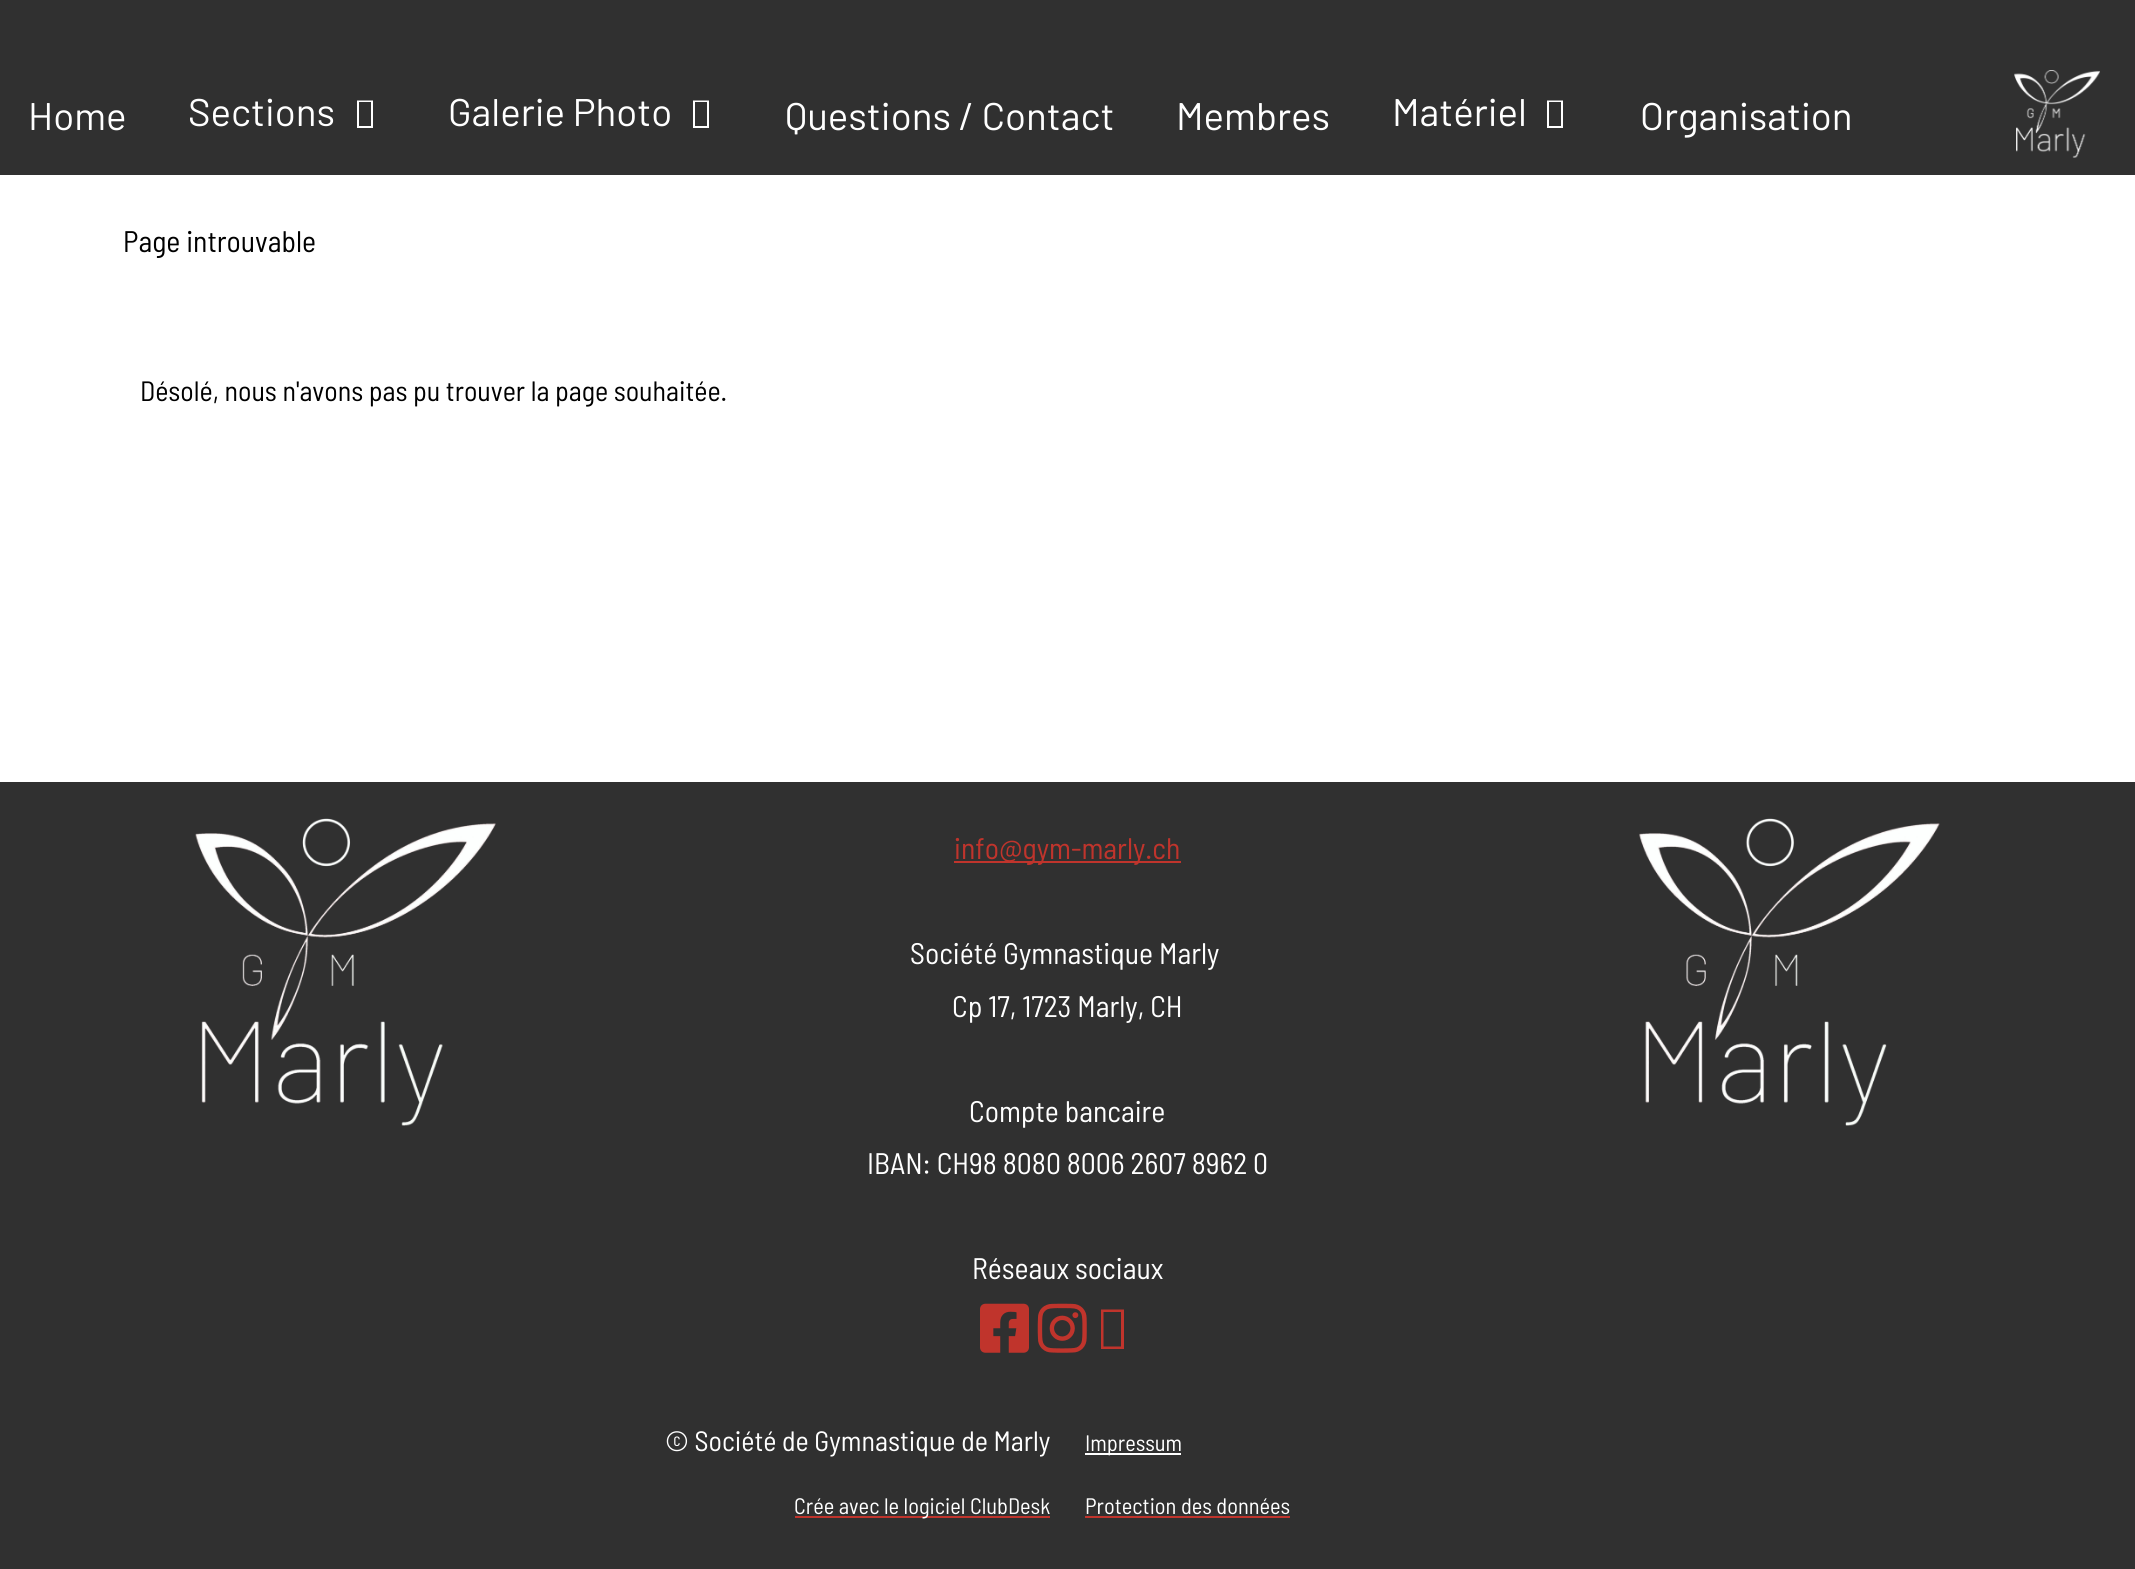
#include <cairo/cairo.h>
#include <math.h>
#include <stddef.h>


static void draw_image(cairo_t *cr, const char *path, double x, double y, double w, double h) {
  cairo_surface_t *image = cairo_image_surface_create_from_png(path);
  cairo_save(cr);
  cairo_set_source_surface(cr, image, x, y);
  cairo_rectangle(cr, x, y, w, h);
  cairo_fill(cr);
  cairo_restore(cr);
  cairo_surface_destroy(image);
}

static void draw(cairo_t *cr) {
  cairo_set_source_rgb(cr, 1, 1, 1);
  cairo_paint(cr);
  cairo_set_source_rgb(cr, 48 / 255.0, 48 / 255.0, 48 / 255.0);
  cairo_rectangle(cr, 0, 0, 2135, 175);
  cairo_fill(cr);
  cairo_set_source_rgb(cr, 1, 1, 1);
  cairo_new_path(cr);
  cairo_move_to(cr, 357, 128);
  cairo_line_to(cr, 357, 100.5);
  cairo_line_to(cr, 373, 100.5);
  cairo_line_to(cr, 373, 128);
  cairo_close_path(cr);
  cairo_move_to(cr, 359, 126);
  cairo_line_to(cr, 371, 126);
  cairo_line_to(cr, 371, 102);
  cairo_line_to(cr, 359, 102);
  cairo_close_path(cr);
  cairo_fill(cr);
  cairo_new_path(cr);
  cairo_move_to(cr, 693, 128);
  cairo_line_to(cr, 693, 100.5);
  cairo_line_to(cr, 709, 100.5);
  cairo_line_to(cr, 709, 128);
  cairo_close_path(cr);
  cairo_move_to(cr, 695, 126);
  cairo_line_to(cr, 707, 126);
  cairo_line_to(cr, 707, 102);
  cairo_line_to(cr, 695, 102);
  cairo_close_path(cr);
  cairo_fill(cr);
  cairo_new_path(cr);
  cairo_move_to(cr, 1547, 128);
  cairo_line_to(cr, 1547, 100.5);
  cairo_line_to(cr, 1563, 100.5);
  cairo_line_to(cr, 1563, 128);
  cairo_close_path(cr);
  cairo_move_to(cr, 1549, 126);
  cairo_line_to(cr, 1561, 126);
  cairo_line_to(cr, 1561, 102);
  cairo_line_to(cr, 1549, 102);
  cairo_close_path(cr);
  cairo_fill(cr);
  draw_image(cr, "images/1.png", 2014, 70, 86, 88);
  cairo_set_source_rgb(cr, 48 / 255.0, 48 / 255.0, 48 / 255.0);
  cairo_rectangle(cr, 0, 782, 2135, 787);
  cairo_fill(cr);
  draw_image(cr, "images/2.png", 195, 818, 301, 308);
  cairo_set_source_rgb(cr, 192 / 255.0, 52 / 255.0, 44 / 255.0);
  cairo_rectangle(cr, 954, 861, 227, 2);
  cairo_fill(cr);
  draw_image(cr, "images/3.png", 980, 1303, 49, 50);
  draw_image(cr, "images/4.png", 1037, 1303, 50, 50);
  cairo_new_path(cr);
  cairo_move_to(cr, 1101, 1349);
  cairo_line_to(cr, 1101, 1309.5);
  cairo_line_to(cr, 1124, 1309.5);
  cairo_line_to(cr, 1124, 1349);
  cairo_close_path(cr);
  cairo_move_to(cr, 1103.5, 1346.5);
  cairo_line_to(cr, 1121, 1346.5);
  cairo_line_to(cr, 1121, 1312);
  cairo_line_to(cr, 1103.5, 1312);
  cairo_close_path(cr);
  cairo_fill(cr);
  draw_image(cr, "images/5.png", 1639, 818, 301, 308);
  cairo_rectangle(cr, 795, 1516, 255, 2);
  cairo_fill(cr);
  cairo_set_source_rgb(cr, 1, 1, 1);
  cairo_rectangle(cr, 1085, 1453, 96, 2);
  cairo_fill(cr);
  cairo_set_source_rgb(cr, 192 / 255.0, 52 / 255.0, 44 / 255.0);
  cairo_rectangle(cr, 1085, 1516, 205, 2);
  cairo_fill(cr);
  cairo_select_font_face(cr, "Barlow", CAIRO_FONT_SLANT_NORMAL, CAIRO_FONT_WEIGHT_NORMAL);
  cairo_set_font_size(cr, 38.5);
  cairo_set_source_rgb(cr, 1, 1, 1);
  cairo_move_to(cr, 28, 130);
  cairo_show_text(cr, "Home");
  cairo_move_to(cr, 188, 126);
  cairo_show_text(cr, "Sections");
  cairo_move_to(cr, 448, 126);
  cairo_show_text(cr, "Galerie Photo");
  cairo_move_to(cr, 785, 130);
  cairo_show_text(cr, "Questions / Contact");
  cairo_move_to(cr, 1176, 130);
  cairo_show_text(cr, "Membres");
  cairo_move_to(cr, 1392, 126);
  cairo_show_text(cr, "Matériel");
  cairo_move_to(cr, 1640, 130);
  cairo_show_text(cr, "Organisation");
  cairo_select_font_face(cr, "Barlow Semi Condensed", CAIRO_FONT_SLANT_NORMAL, CAIRO_FONT_WEIGHT_NORMAL);
  cairo_set_font_size(cr, 29.75);
  cairo_set_source_rgb(cr, 0, 0, 0);
  cairo_move_to(cr, 123, 252);
  cairo_show_text(cr, "Page introuvable");
  cairo_set_font_size(cr, 28);
  cairo_move_to(cr, 140, 401);
  cairo_show_text(cr, "Désolé, nous n'avons pas pu trouver la page souhaitée.");
  cairo_set_font_size(cr, 29.75);
  cairo_set_source_rgb(cr, 192 / 255.0, 52 / 255.0, 44 / 255.0);
  cairo_move_to(cr, 954, 859);
  cairo_show_text(cr, "info@gym-marly.ch");
  cairo_set_source_rgb(cr, 1, 1, 1);
  cairo_move_to(cr, 910, 964);
  cairo_show_text(cr, "Société Gymnastique Marly");
  cairo_move_to(cr, 952, 1017);
  cairo_show_text(cr, "Cp 17, 1723 Marly, CH");
  cairo_move_to(cr, 969, 1122);
  cairo_show_text(cr, "Compte bancaire");
  cairo_move_to(cr, 867, 1174);
  cairo_show_text(cr, "IBAN: CH98 8080 8006 2607 8962 0");
  cairo_move_to(cr, 972, 1279);
  cairo_show_text(cr, "Réseaux sociaux");
  cairo_set_font_size(cr, 28);
  cairo_move_to(cr, 665, 1451);
  cairo_show_text(cr, "© Société de Gymnastique de Marly");
  cairo_set_font_size(cr, 22.4);
  cairo_move_to(cr, 794, 1514);
  cairo_show_text(cr, "Crée avec le logiciel ClubDesk");
  cairo_move_to(cr, 1085, 1451);
  cairo_show_text(cr, "Impressum");
  cairo_move_to(cr, 1085, 1514);
  cairo_show_text(cr, "Protection des données");
}

int main(void) {
  cairo_surface_t *surface = cairo_image_surface_create(CAIRO_FORMAT_RGB24, 2135, 1569);
  cairo_t *cr = cairo_create(surface);
  cairo_font_options_t *options = cairo_font_options_create();
  cairo_font_options_set_hint_metrics(options, CAIRO_HINT_METRICS_OFF);
  cairo_font_options_set_hint_style(options, CAIRO_HINT_STYLE_NONE);
  cairo_set_font_options(cr, options);
  cairo_set_miter_limit(cr, 4);
  draw(cr);
  cairo_surface_write_to_png(surface, "out.png");
  cairo_font_options_destroy(options);
  cairo_destroy(cr);
  cairo_surface_destroy(surface);
  return 0;
}
